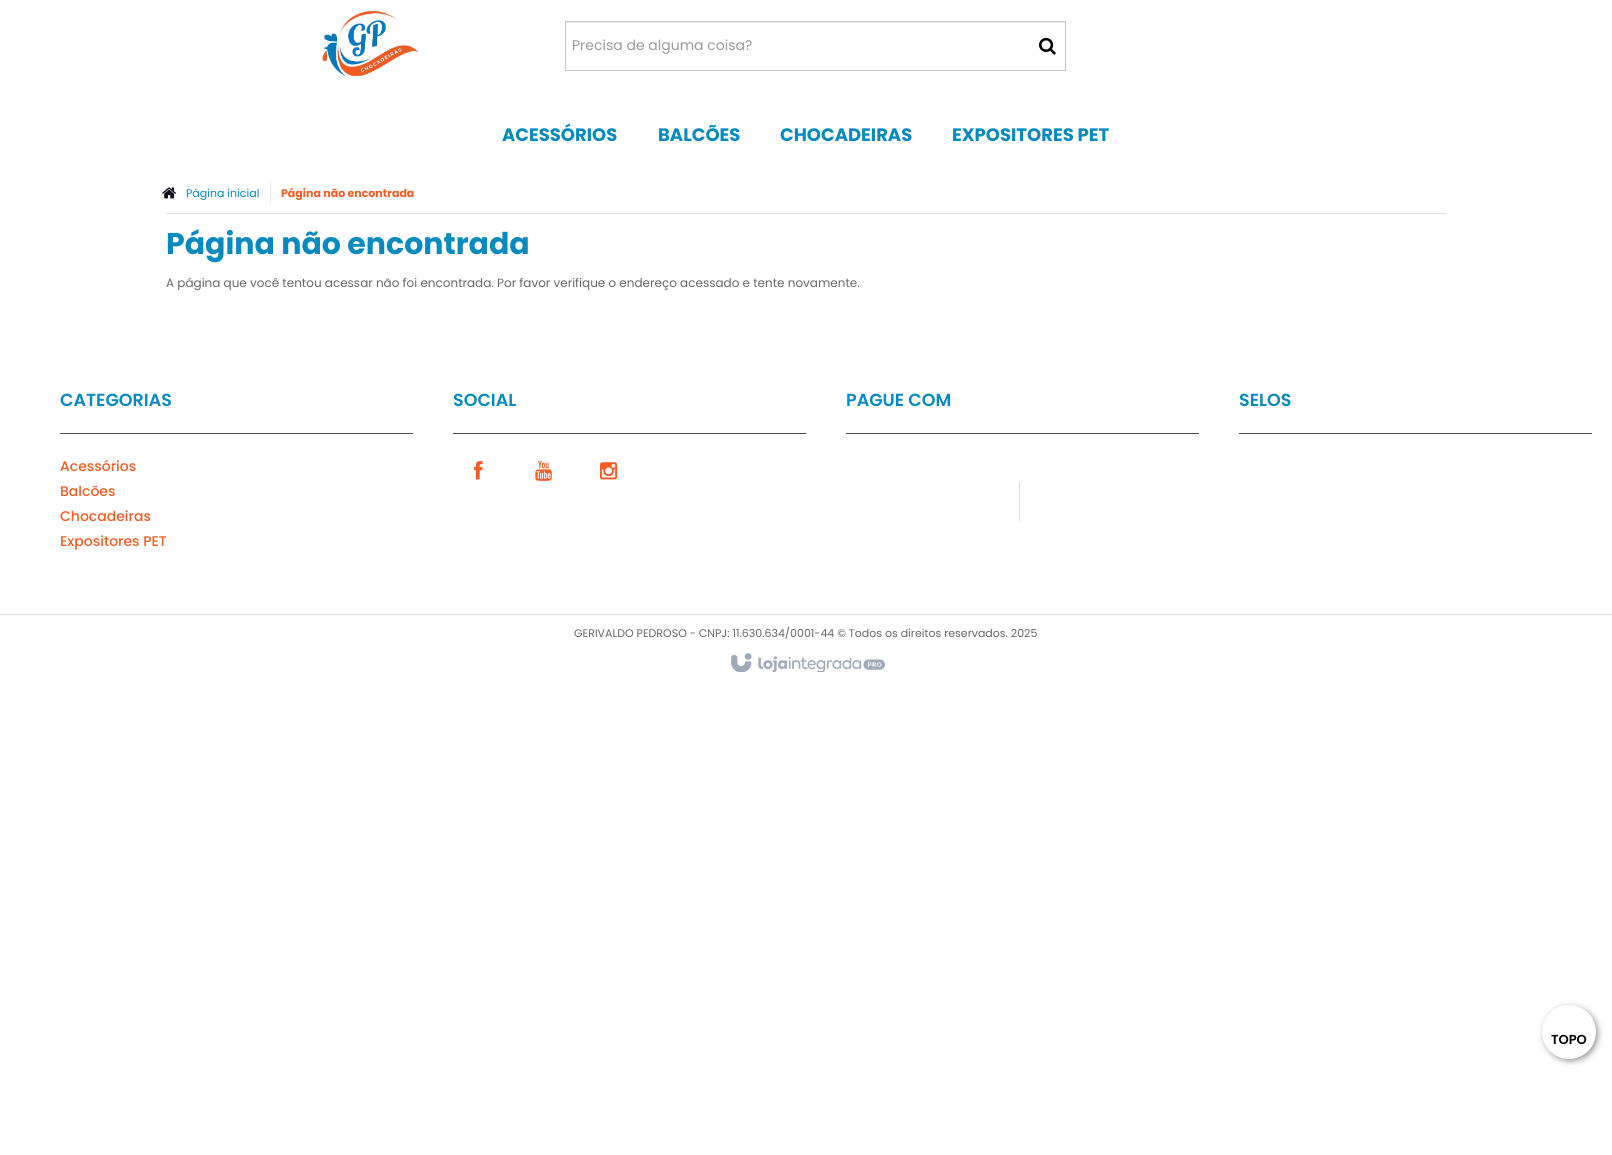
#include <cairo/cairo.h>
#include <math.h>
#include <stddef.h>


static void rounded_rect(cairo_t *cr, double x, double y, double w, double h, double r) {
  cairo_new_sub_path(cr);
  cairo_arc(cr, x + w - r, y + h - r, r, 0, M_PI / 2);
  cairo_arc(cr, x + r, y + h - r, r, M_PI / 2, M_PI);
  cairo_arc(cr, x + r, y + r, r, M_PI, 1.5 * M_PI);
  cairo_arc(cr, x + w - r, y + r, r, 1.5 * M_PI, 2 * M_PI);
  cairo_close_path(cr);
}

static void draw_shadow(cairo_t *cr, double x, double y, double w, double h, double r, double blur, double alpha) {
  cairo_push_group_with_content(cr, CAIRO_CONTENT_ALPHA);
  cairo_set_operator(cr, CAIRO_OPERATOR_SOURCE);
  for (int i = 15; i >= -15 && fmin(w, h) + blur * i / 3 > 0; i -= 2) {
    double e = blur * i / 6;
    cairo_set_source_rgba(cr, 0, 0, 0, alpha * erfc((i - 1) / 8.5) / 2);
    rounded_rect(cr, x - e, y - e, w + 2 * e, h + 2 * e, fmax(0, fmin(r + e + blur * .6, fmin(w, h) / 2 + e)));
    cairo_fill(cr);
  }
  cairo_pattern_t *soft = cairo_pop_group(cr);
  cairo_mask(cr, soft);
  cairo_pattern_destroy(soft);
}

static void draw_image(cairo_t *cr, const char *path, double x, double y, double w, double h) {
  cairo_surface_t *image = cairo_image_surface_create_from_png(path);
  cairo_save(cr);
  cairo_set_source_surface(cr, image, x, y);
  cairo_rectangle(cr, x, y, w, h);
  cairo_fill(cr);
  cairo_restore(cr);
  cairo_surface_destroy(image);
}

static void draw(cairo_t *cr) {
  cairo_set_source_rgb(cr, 1, 1, 1);
  cairo_paint(cr);
  draw_image(cr, "images/1.png", 322, 11, 97, 66);
  cairo_set_source_rgb(cr, 236 / 255.0, 236 / 255.0, 236 / 255.0);
  cairo_rectangle(cr, 566, 22, 499, 1);
  cairo_fill(cr);
  cairo_rectangle(cr, 565.5, 21.5, 500, 49);
  cairo_set_source_rgb(cr, 199 / 255.0, 199 / 255.0, 199 / 255.0);
  cairo_set_line_width(cr, 1);
  cairo_stroke(cr);
  draw_image(cr, "images/2.png", 1039, 37, 17, 18);
  cairo_set_source_rgb(cr, 222 / 255.0, 222 / 255.0, 222 / 255.0);
  cairo_rectangle(cr, 166, 213, 1280, 1);
  cairo_fill(cr);
  draw_image(cr, "images/3.png", 162, 187, 14, 12);
  cairo_set_source_rgb(cr, 230 / 255.0, 230 / 255.0, 230 / 255.0);
  cairo_rectangle(cr, 270, 183, 1, 20);
  cairo_fill(cr);
  cairo_set_source_rgb(cr, 76 / 255.0, 75 / 255.0, 75 / 255.0);
  cairo_rectangle(cr, 60, 433, 353, 1);
  cairo_fill(cr);
  cairo_rectangle(cr, 453, 433, 353, 1);
  cairo_fill(cr);
  draw_image(cr, "images/4.png", 474, 461, 9, 19);
  draw_image(cr, "images/5.png", 535, 460, 17, 21);
  draw_image(cr, "images/6.png", 600, 462, 18, 18);
  cairo_rectangle(cr, 846, 433, 353, 1);
  cairo_fill(cr);
  cairo_set_source_rgb(cr, 221 / 255.0, 221 / 255.0, 221 / 255.0);
  cairo_rectangle(cr, 1019, 482, 1, 39);
  cairo_fill(cr);
  cairo_set_source_rgb(cr, 76 / 255.0, 75 / 255.0, 75 / 255.0);
  cairo_rectangle(cr, 1239, 433, 353, 1);
  cairo_fill(cr);
  cairo_set_source_rgb(cr, 221 / 255.0, 221 / 255.0, 221 / 255.0);
  cairo_rectangle(cr, 0, 614, 1612, 1);
  cairo_fill(cr);
  draw_image(cr, "images/7.png", 731, 653, 154, 19);
  cairo_set_source_rgb(cr, 0, 0, 0);
  draw_shadow(cr, 1544, 1007, 54, 54, 27, 3, 0.4);
  cairo_set_source_rgb(cr, 1, 1, 1);
  cairo_arc(cr, 1569, 1032, 27, 0, 2 * M_PI);
  cairo_fill(cr);
  cairo_select_font_face(cr, "Poppins", CAIRO_FONT_SLANT_NORMAL, CAIRO_FONT_WEIGHT_NORMAL);
  cairo_set_font_size(cr, 14);
  cairo_set_source_rgb(cr, 153 / 255.0, 153 / 255.0, 153 / 255.0);
  cairo_move_to(cr, 572, 50);
  cairo_show_text(cr, "Precisa de alguma coisa?");
  cairo_select_font_face(cr, "Poppins", CAIRO_FONT_SLANT_NORMAL, CAIRO_FONT_WEIGHT_BOLD);
  cairo_set_font_size(cr, 18);
  cairo_set_source_rgb(cr, 4 / 255.0, 138 / 255.0, 191 / 255.0);
  cairo_move_to(cr, 502, 141);
  cairo_show_text(cr, "ACESSÓRIOS");
  cairo_move_to(cr, 658, 141);
  cairo_show_text(cr, "BALCÕES");
  cairo_move_to(cr, 780, 141);
  cairo_show_text(cr, "CHOCADEIRAS");
  cairo_move_to(cr, 952, 141);
  cairo_show_text(cr, "EXPOSITORES PET");
  cairo_select_font_face(cr, "Poppins", CAIRO_FONT_SLANT_NORMAL, CAIRO_FONT_WEIGHT_NORMAL);
  cairo_set_font_size(cr, 11);
  cairo_move_to(cr, 186, 197);
  cairo_show_text(cr, "Página inicial");
  cairo_select_font_face(cr, "Poppins", CAIRO_FONT_SLANT_NORMAL, CAIRO_FONT_WEIGHT_BOLD);
  cairo_set_source_rgb(cr, 242 / 255.0, 93 / 255.0, 39 / 255.0);
  cairo_move_to(cr, 281, 197);
  cairo_show_text(cr, "Página não encontrada");
  cairo_set_font_size(cr, 30);
  cairo_set_source_rgb(cr, 4 / 255.0, 138 / 255.0, 191 / 255.0);
  cairo_move_to(cr, 166, 254);
  cairo_show_text(cr, "Página não encontrada");
  cairo_select_font_face(cr, "Poppins", CAIRO_FONT_SLANT_NORMAL, CAIRO_FONT_WEIGHT_NORMAL);
  cairo_set_font_size(cr, 12);
  cairo_set_source_rgb(cr, 102 / 255.0, 102 / 255.0, 102 / 255.0);
  cairo_move_to(cr, 166, 287);
  cairo_show_text(cr, "A página que você tentou acessar não foi encontrada. Por favor verifique o endereço acessado e tente novamente.");
  cairo_select_font_face(cr, "Poppins SemiBold", CAIRO_FONT_SLANT_NORMAL, CAIRO_FONT_WEIGHT_NORMAL);
  cairo_set_font_size(cr, 17.5);
  cairo_set_source_rgb(cr, 4 / 255.0, 138 / 255.0, 191 / 255.0);
  cairo_move_to(cr, 60, 406);
  cairo_show_text(cr, "CATEGORIAS");
  cairo_select_font_face(cr, "Poppins Medium", CAIRO_FONT_SLANT_NORMAL, CAIRO_FONT_WEIGHT_NORMAL);
  cairo_set_font_size(cr, 14);
  cairo_set_source_rgb(cr, 242 / 255.0, 93 / 255.0, 39 / 255.0);
  cairo_move_to(cr, 60, 471);
  cairo_show_text(cr, "Acessórios");
  cairo_move_to(cr, 60, 496);
  cairo_show_text(cr, "Balcões");
  cairo_move_to(cr, 60, 521);
  cairo_show_text(cr, "Chocadeiras");
  cairo_move_to(cr, 60, 546);
  cairo_show_text(cr, "Expositores PET");
  cairo_select_font_face(cr, "Poppins SemiBold", CAIRO_FONT_SLANT_NORMAL, CAIRO_FONT_WEIGHT_NORMAL);
  cairo_set_font_size(cr, 17.5);
  cairo_set_source_rgb(cr, 4 / 255.0, 138 / 255.0, 191 / 255.0);
  cairo_move_to(cr, 453, 406);
  cairo_show_text(cr, "SOCIAL");
  cairo_move_to(cr, 846, 406);
  cairo_show_text(cr, "PAGUE COM");
  cairo_move_to(cr, 1239, 406);
  cairo_show_text(cr, "SELOS");
  cairo_select_font_face(cr, "Poppins", CAIRO_FONT_SLANT_NORMAL, CAIRO_FONT_WEIGHT_NORMAL);
  cairo_set_font_size(cr, 11);
  cairo_set_source_rgb(cr, 102 / 255.0, 102 / 255.0, 102 / 255.0);
  cairo_move_to(cr, 574, 637);
  cairo_show_text(cr, "GERIVALDO PEDROSO - CNPJ: 11.630.634/0001-44 © Todos os direitos reservados. 2025");
  cairo_select_font_face(cr, "Poppins SemiBold", CAIRO_FONT_SLANT_NORMAL, CAIRO_FONT_WEIGHT_NORMAL);
  cairo_set_font_size(cr, 13);
  cairo_set_source_rgb(cr, 0, 0, 0);
  cairo_move_to(cr, 1551, 1044);
  cairo_show_text(cr, "TOPO");
}

int main(void) {
  cairo_surface_t *surface = cairo_image_surface_create(CAIRO_FORMAT_RGB24, 1612, 1155);
  cairo_t *cr = cairo_create(surface);
  cairo_font_options_t *options = cairo_font_options_create();
  cairo_font_options_set_hint_metrics(options, CAIRO_HINT_METRICS_OFF);
  cairo_font_options_set_hint_style(options, CAIRO_HINT_STYLE_NONE);
  cairo_set_font_options(cr, options);
  cairo_set_miter_limit(cr, 4);
  draw(cr);
  cairo_surface_write_to_png(surface, "out.png");
  cairo_font_options_destroy(options);
  cairo_destroy(cr);
  cairo_surface_destroy(surface);
  return 0;
}
